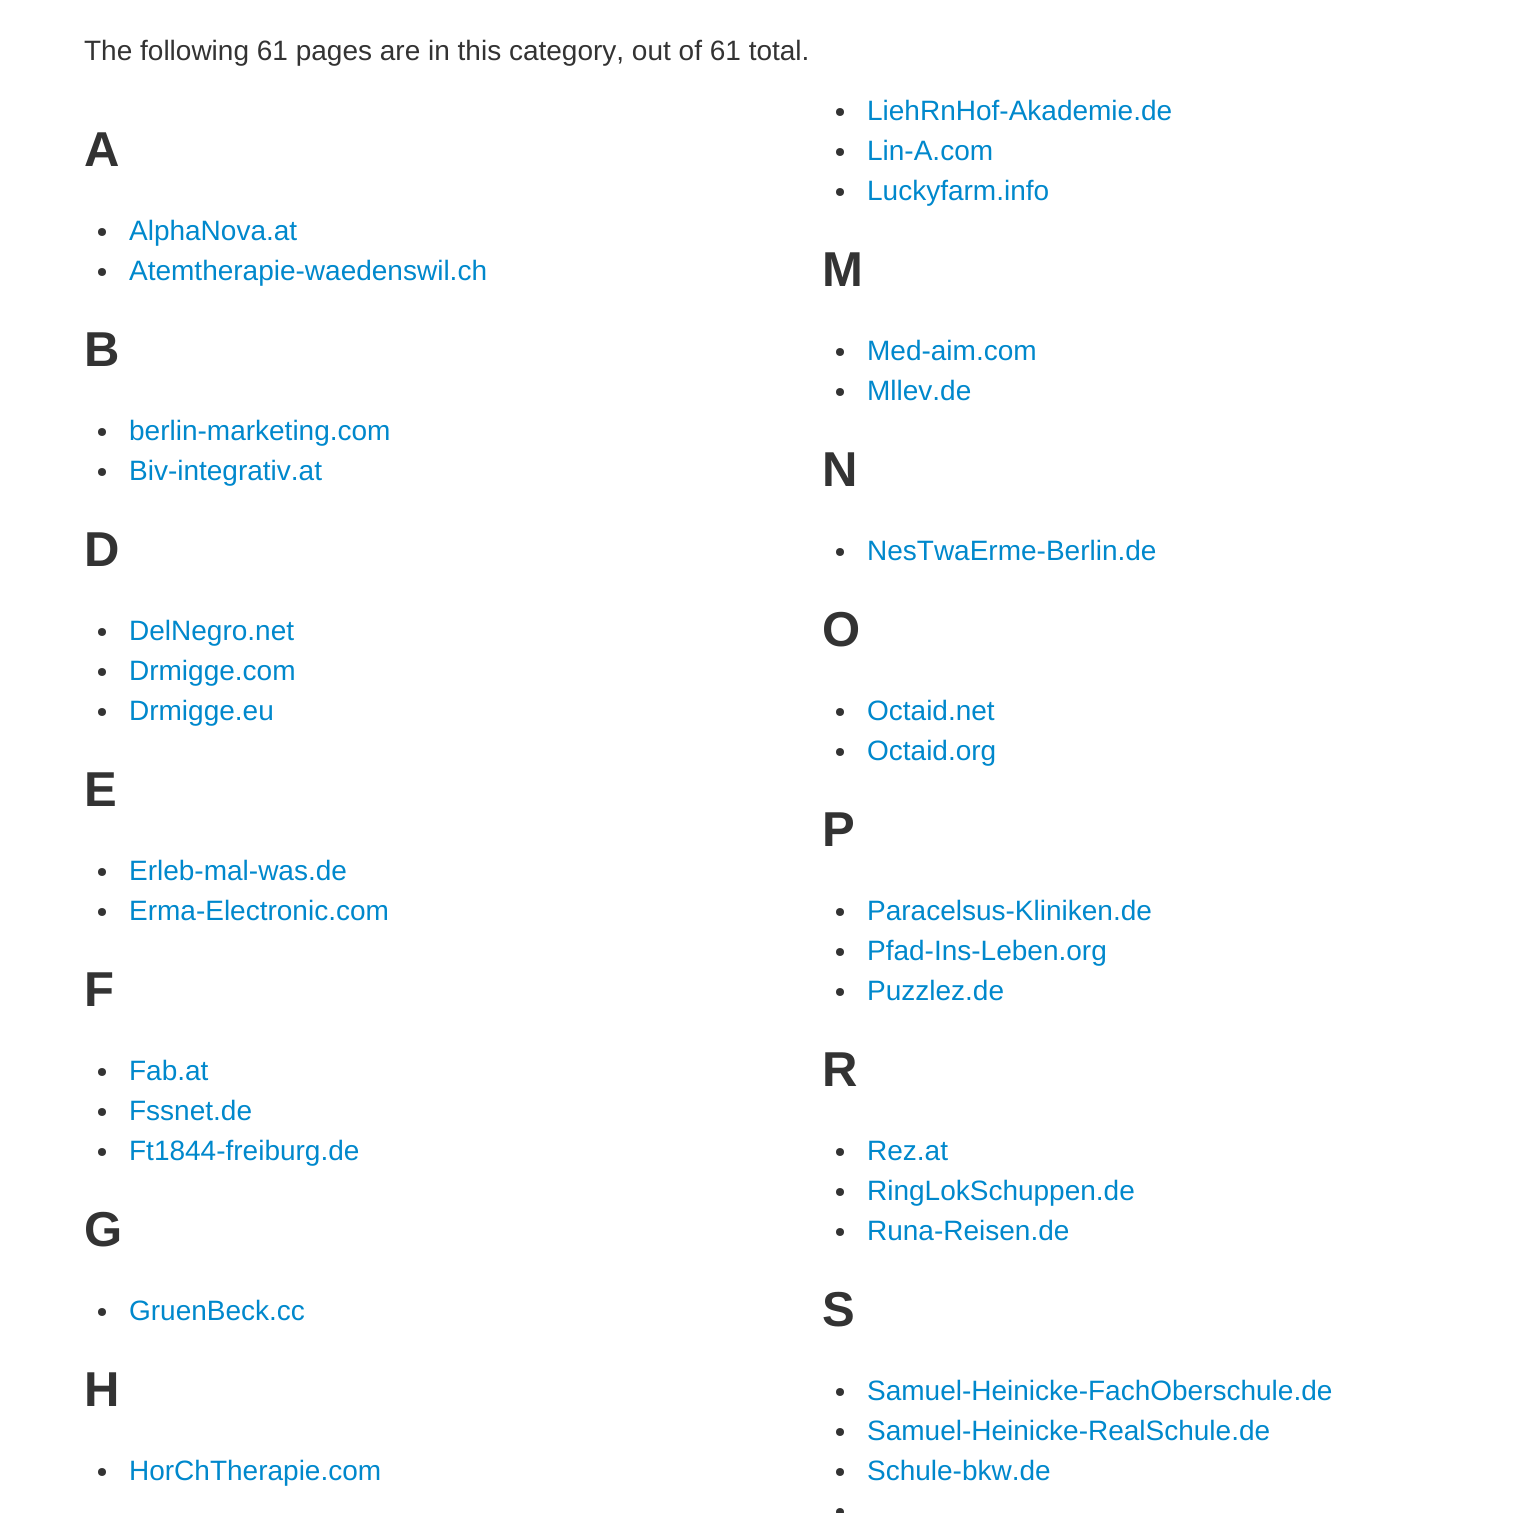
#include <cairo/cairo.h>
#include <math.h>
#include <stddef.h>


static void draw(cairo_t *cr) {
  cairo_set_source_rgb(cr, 1, 1, 1);
  cairo_paint(cr);
  cairo_set_source_rgb(cr, 51 / 255.0, 51 / 255.0, 51 / 255.0);
  cairo_arc(cr, 102, 232, 4, 0, 2 * M_PI);
  cairo_fill(cr);
  cairo_arc(cr, 102, 272, 4, 0, 2 * M_PI);
  cairo_fill(cr);
  cairo_arc(cr, 840, 112, 4, 0, 2 * M_PI);
  cairo_fill(cr);
  cairo_arc(cr, 840, 152, 4, 0, 2 * M_PI);
  cairo_fill(cr);
  cairo_arc(cr, 840, 192, 4, 0, 2 * M_PI);
  cairo_fill(cr);
  cairo_arc(cr, 102, 432, 4, 0, 2 * M_PI);
  cairo_fill(cr);
  cairo_arc(cr, 102, 472, 4, 0, 2 * M_PI);
  cairo_fill(cr);
  cairo_arc(cr, 840, 352, 4, 0, 2 * M_PI);
  cairo_fill(cr);
  cairo_arc(cr, 840, 392, 4, 0, 2 * M_PI);
  cairo_fill(cr);
  cairo_arc(cr, 840, 552, 4, 0, 2 * M_PI);
  cairo_fill(cr);
  cairo_arc(cr, 102, 632, 4, 0, 2 * M_PI);
  cairo_fill(cr);
  cairo_arc(cr, 102, 672, 4, 0, 2 * M_PI);
  cairo_fill(cr);
  cairo_arc(cr, 102, 712, 4, 0, 2 * M_PI);
  cairo_fill(cr);
  cairo_arc(cr, 840, 712, 4, 0, 2 * M_PI);
  cairo_fill(cr);
  cairo_arc(cr, 840, 752, 4, 0, 2 * M_PI);
  cairo_fill(cr);
  cairo_arc(cr, 102, 872, 4, 0, 2 * M_PI);
  cairo_fill(cr);
  cairo_arc(cr, 102, 912, 4, 0, 2 * M_PI);
  cairo_fill(cr);
  cairo_arc(cr, 840, 912, 4, 0, 2 * M_PI);
  cairo_fill(cr);
  cairo_arc(cr, 840, 952, 4, 0, 2 * M_PI);
  cairo_fill(cr);
  cairo_arc(cr, 840, 992, 4, 0, 2 * M_PI);
  cairo_fill(cr);
  cairo_arc(cr, 102, 1072, 4, 0, 2 * M_PI);
  cairo_fill(cr);
  cairo_arc(cr, 102, 1112, 4, 0, 2 * M_PI);
  cairo_fill(cr);
  cairo_arc(cr, 102, 1152, 4, 0, 2 * M_PI);
  cairo_fill(cr);
  cairo_arc(cr, 840, 1152, 4, 0, 2 * M_PI);
  cairo_fill(cr);
  cairo_arc(cr, 840, 1192, 4, 0, 2 * M_PI);
  cairo_fill(cr);
  cairo_arc(cr, 840, 1232, 4, 0, 2 * M_PI);
  cairo_fill(cr);
  cairo_arc(cr, 102, 1312, 4, 0, 2 * M_PI);
  cairo_fill(cr);
  cairo_arc(cr, 102, 1472, 4, 0, 2 * M_PI);
  cairo_fill(cr);
  cairo_arc(cr, 840, 1392, 4, 0, 2 * M_PI);
  cairo_fill(cr);
  cairo_arc(cr, 840, 1432, 4, 0, 2 * M_PI);
  cairo_fill(cr);
  cairo_arc(cr, 840, 1472, 4, 0, 2 * M_PI);
  cairo_fill(cr);
  cairo_arc(cr, 840, 1512, 4, 0, 2 * M_PI);
  cairo_fill(cr);
  cairo_select_font_face(cr, "Liberation Sans", CAIRO_FONT_SLANT_NORMAL, CAIRO_FONT_WEIGHT_NORMAL);
  cairo_set_font_size(cr, 28);
  cairo_move_to(cr, 84, 60);
  cairo_show_text(cr, "The following 61 pages are in this category, out of 61 total.");
  cairo_select_font_face(cr, "Liberation Sans", CAIRO_FONT_SLANT_NORMAL, CAIRO_FONT_WEIGHT_BOLD);
  cairo_set_font_size(cr, 49);
  cairo_move_to(cr, 84, 166);
  cairo_show_text(cr, "A");
  cairo_select_font_face(cr, "Liberation Sans", CAIRO_FONT_SLANT_NORMAL, CAIRO_FONT_WEIGHT_NORMAL);
  cairo_set_font_size(cr, 28);
  cairo_set_source_rgb(cr, 0, 136 / 255.0, 204 / 255.0);
  cairo_move_to(cr, 129, 240);
  cairo_show_text(cr, "AlphaNova.at");
  cairo_move_to(cr, 129, 280);
  cairo_show_text(cr, "Atemtherapie-waedenswil.ch");
  cairo_move_to(cr, 867, 120);
  cairo_show_text(cr, "LiehRnHof-Akademie.de");
  cairo_move_to(cr, 867, 160);
  cairo_show_text(cr, "Lin-A.com");
  cairo_move_to(cr, 867, 200);
  cairo_show_text(cr, "Luckyfarm.info");
  cairo_select_font_face(cr, "Liberation Sans", CAIRO_FONT_SLANT_NORMAL, CAIRO_FONT_WEIGHT_BOLD);
  cairo_set_font_size(cr, 49);
  cairo_set_source_rgb(cr, 51 / 255.0, 51 / 255.0, 51 / 255.0);
  cairo_move_to(cr, 84, 366);
  cairo_show_text(cr, "B");
  cairo_select_font_face(cr, "Liberation Sans", CAIRO_FONT_SLANT_NORMAL, CAIRO_FONT_WEIGHT_NORMAL);
  cairo_set_font_size(cr, 28);
  cairo_set_source_rgb(cr, 0, 136 / 255.0, 204 / 255.0);
  cairo_move_to(cr, 129, 440);
  cairo_show_text(cr, "berlin-marketing.com");
  cairo_move_to(cr, 129, 480);
  cairo_show_text(cr, "Biv-integrativ.at");
  cairo_select_font_face(cr, "Liberation Sans", CAIRO_FONT_SLANT_NORMAL, CAIRO_FONT_WEIGHT_BOLD);
  cairo_set_font_size(cr, 49);
  cairo_set_source_rgb(cr, 51 / 255.0, 51 / 255.0, 51 / 255.0);
  cairo_move_to(cr, 822, 286);
  cairo_show_text(cr, "M");
  cairo_select_font_face(cr, "Liberation Sans", CAIRO_FONT_SLANT_NORMAL, CAIRO_FONT_WEIGHT_NORMAL);
  cairo_set_font_size(cr, 28);
  cairo_set_source_rgb(cr, 0, 136 / 255.0, 204 / 255.0);
  cairo_move_to(cr, 867, 360);
  cairo_show_text(cr, "Med-aim.com");
  cairo_move_to(cr, 867, 400);
  cairo_show_text(cr, "Mllev.de");
  cairo_select_font_face(cr, "Liberation Sans", CAIRO_FONT_SLANT_NORMAL, CAIRO_FONT_WEIGHT_BOLD);
  cairo_set_font_size(cr, 49);
  cairo_set_source_rgb(cr, 51 / 255.0, 51 / 255.0, 51 / 255.0);
  cairo_move_to(cr, 822, 486);
  cairo_show_text(cr, "N");
  cairo_select_font_face(cr, "Liberation Sans", CAIRO_FONT_SLANT_NORMAL, CAIRO_FONT_WEIGHT_NORMAL);
  cairo_set_font_size(cr, 28);
  cairo_set_source_rgb(cr, 0, 136 / 255.0, 204 / 255.0);
  cairo_move_to(cr, 867, 560);
  cairo_show_text(cr, "NesTwaErme-Berlin.de");
  cairo_select_font_face(cr, "Liberation Sans", CAIRO_FONT_SLANT_NORMAL, CAIRO_FONT_WEIGHT_BOLD);
  cairo_set_font_size(cr, 49);
  cairo_set_source_rgb(cr, 51 / 255.0, 51 / 255.0, 51 / 255.0);
  cairo_move_to(cr, 84, 566);
  cairo_show_text(cr, "D");
  cairo_select_font_face(cr, "Liberation Sans", CAIRO_FONT_SLANT_NORMAL, CAIRO_FONT_WEIGHT_NORMAL);
  cairo_set_font_size(cr, 28);
  cairo_set_source_rgb(cr, 0, 136 / 255.0, 204 / 255.0);
  cairo_move_to(cr, 129, 640);
  cairo_show_text(cr, "DelNegro.net");
  cairo_move_to(cr, 129, 680);
  cairo_show_text(cr, "Drmigge.com");
  cairo_move_to(cr, 129, 720);
  cairo_show_text(cr, "Drmigge.eu");
  cairo_select_font_face(cr, "Liberation Sans", CAIRO_FONT_SLANT_NORMAL, CAIRO_FONT_WEIGHT_BOLD);
  cairo_set_font_size(cr, 49);
  cairo_set_source_rgb(cr, 51 / 255.0, 51 / 255.0, 51 / 255.0);
  cairo_move_to(cr, 822, 646);
  cairo_show_text(cr, "O");
  cairo_select_font_face(cr, "Liberation Sans", CAIRO_FONT_SLANT_NORMAL, CAIRO_FONT_WEIGHT_NORMAL);
  cairo_set_font_size(cr, 28);
  cairo_set_source_rgb(cr, 0, 136 / 255.0, 204 / 255.0);
  cairo_move_to(cr, 867, 720);
  cairo_show_text(cr, "Octaid.net");
  cairo_move_to(cr, 867, 760);
  cairo_show_text(cr, "Octaid.org");
  cairo_select_font_face(cr, "Liberation Sans", CAIRO_FONT_SLANT_NORMAL, CAIRO_FONT_WEIGHT_BOLD);
  cairo_set_font_size(cr, 49);
  cairo_set_source_rgb(cr, 51 / 255.0, 51 / 255.0, 51 / 255.0);
  cairo_move_to(cr, 84, 806);
  cairo_show_text(cr, "E");
  cairo_select_font_face(cr, "Liberation Sans", CAIRO_FONT_SLANT_NORMAL, CAIRO_FONT_WEIGHT_NORMAL);
  cairo_set_font_size(cr, 28);
  cairo_set_source_rgb(cr, 0, 136 / 255.0, 204 / 255.0);
  cairo_move_to(cr, 129, 880);
  cairo_show_text(cr, "Erleb-mal-was.de");
  cairo_move_to(cr, 129, 920);
  cairo_show_text(cr, "Erma-Electronic.com");
  cairo_select_font_face(cr, "Liberation Sans", CAIRO_FONT_SLANT_NORMAL, CAIRO_FONT_WEIGHT_BOLD);
  cairo_set_font_size(cr, 49);
  cairo_set_source_rgb(cr, 51 / 255.0, 51 / 255.0, 51 / 255.0);
  cairo_move_to(cr, 822, 846);
  cairo_show_text(cr, "P");
  cairo_select_font_face(cr, "Liberation Sans", CAIRO_FONT_SLANT_NORMAL, CAIRO_FONT_WEIGHT_NORMAL);
  cairo_set_font_size(cr, 28);
  cairo_set_source_rgb(cr, 0, 136 / 255.0, 204 / 255.0);
  cairo_move_to(cr, 867, 920);
  cairo_show_text(cr, "Paracelsus-Kliniken.de");
  cairo_move_to(cr, 867, 960);
  cairo_show_text(cr, "Pfad-Ins-Leben.org");
  cairo_move_to(cr, 867, 1000);
  cairo_show_text(cr, "Puzzlez.de");
  cairo_select_font_face(cr, "Liberation Sans", CAIRO_FONT_SLANT_NORMAL, CAIRO_FONT_WEIGHT_BOLD);
  cairo_set_font_size(cr, 49);
  cairo_set_source_rgb(cr, 51 / 255.0, 51 / 255.0, 51 / 255.0);
  cairo_move_to(cr, 84, 1006);
  cairo_show_text(cr, "F");
  cairo_select_font_face(cr, "Liberation Sans", CAIRO_FONT_SLANT_NORMAL, CAIRO_FONT_WEIGHT_NORMAL);
  cairo_set_font_size(cr, 28);
  cairo_set_source_rgb(cr, 0, 136 / 255.0, 204 / 255.0);
  cairo_move_to(cr, 129, 1080);
  cairo_show_text(cr, "Fab.at");
  cairo_move_to(cr, 129, 1120);
  cairo_show_text(cr, "Fssnet.de");
  cairo_move_to(cr, 129, 1160);
  cairo_show_text(cr, "Ft1844-freiburg.de");
  cairo_select_font_face(cr, "Liberation Sans", CAIRO_FONT_SLANT_NORMAL, CAIRO_FONT_WEIGHT_BOLD);
  cairo_set_font_size(cr, 49);
  cairo_set_source_rgb(cr, 51 / 255.0, 51 / 255.0, 51 / 255.0);
  cairo_move_to(cr, 822, 1086);
  cairo_show_text(cr, "R");
  cairo_select_font_face(cr, "Liberation Sans", CAIRO_FONT_SLANT_NORMAL, CAIRO_FONT_WEIGHT_NORMAL);
  cairo_set_font_size(cr, 28);
  cairo_set_source_rgb(cr, 0, 136 / 255.0, 204 / 255.0);
  cairo_move_to(cr, 867, 1160);
  cairo_show_text(cr, "Rez.at");
  cairo_move_to(cr, 867, 1200);
  cairo_show_text(cr, "RingLokSchuppen.de");
  cairo_move_to(cr, 867, 1240);
  cairo_show_text(cr, "Runa-Reisen.de");
  cairo_select_font_face(cr, "Liberation Sans", CAIRO_FONT_SLANT_NORMAL, CAIRO_FONT_WEIGHT_BOLD);
  cairo_set_font_size(cr, 49);
  cairo_set_source_rgb(cr, 51 / 255.0, 51 / 255.0, 51 / 255.0);
  cairo_move_to(cr, 84, 1246);
  cairo_show_text(cr, "G");
  cairo_select_font_face(cr, "Liberation Sans", CAIRO_FONT_SLANT_NORMAL, CAIRO_FONT_WEIGHT_NORMAL);
  cairo_set_font_size(cr, 28);
  cairo_set_source_rgb(cr, 0, 136 / 255.0, 204 / 255.0);
  cairo_move_to(cr, 129, 1320);
  cairo_show_text(cr, "GruenBeck.cc");
  cairo_select_font_face(cr, "Liberation Sans", CAIRO_FONT_SLANT_NORMAL, CAIRO_FONT_WEIGHT_BOLD);
  cairo_set_font_size(cr, 49);
  cairo_set_source_rgb(cr, 51 / 255.0, 51 / 255.0, 51 / 255.0);
  cairo_move_to(cr, 84, 1406);
  cairo_show_text(cr, "H");
  cairo_select_font_face(cr, "Liberation Sans", CAIRO_FONT_SLANT_NORMAL, CAIRO_FONT_WEIGHT_NORMAL);
  cairo_set_font_size(cr, 28);
  cairo_set_source_rgb(cr, 0, 136 / 255.0, 204 / 255.0);
  cairo_move_to(cr, 129, 1480);
  cairo_show_text(cr, "HorChTherapie.com");
  cairo_select_font_face(cr, "Liberation Sans", CAIRO_FONT_SLANT_NORMAL, CAIRO_FONT_WEIGHT_BOLD);
  cairo_set_font_size(cr, 49);
  cairo_set_source_rgb(cr, 51 / 255.0, 51 / 255.0, 51 / 255.0);
  cairo_move_to(cr, 822, 1326);
  cairo_show_text(cr, "S");
  cairo_select_font_face(cr, "Liberation Sans", CAIRO_FONT_SLANT_NORMAL, CAIRO_FONT_WEIGHT_NORMAL);
  cairo_set_font_size(cr, 28);
  cairo_set_source_rgb(cr, 0, 136 / 255.0, 204 / 255.0);
  cairo_move_to(cr, 867, 1400);
  cairo_show_text(cr, "Samuel-Heinicke-FachOberschule.de");
  cairo_move_to(cr, 867, 1440);
  cairo_show_text(cr, "Samuel-Heinicke-RealSchule.de");
  cairo_move_to(cr, 867, 1480);
  cairo_show_text(cr, "Schule-bkw.de");
}

int main(void) {
  cairo_surface_t *surface = cairo_image_surface_create(CAIRO_FORMAT_RGB24, 1535, 1513);
  cairo_t *cr = cairo_create(surface);
  cairo_font_options_t *options = cairo_font_options_create();
  cairo_font_options_set_hint_metrics(options, CAIRO_HINT_METRICS_OFF);
  cairo_font_options_set_hint_style(options, CAIRO_HINT_STYLE_NONE);
  cairo_set_font_options(cr, options);
  cairo_set_miter_limit(cr, 4);
  draw(cr);
  cairo_surface_write_to_png(surface, "out.png");
  cairo_font_options_destroy(options);
  cairo_destroy(cr);
  cairo_surface_destroy(surface);
  return 0;
}
